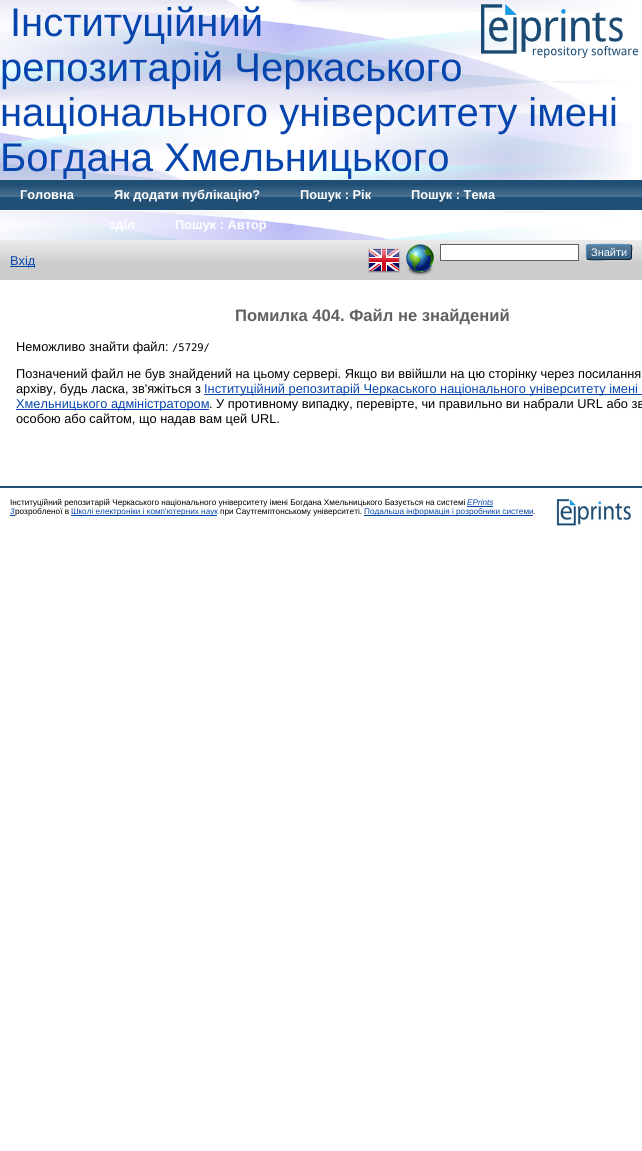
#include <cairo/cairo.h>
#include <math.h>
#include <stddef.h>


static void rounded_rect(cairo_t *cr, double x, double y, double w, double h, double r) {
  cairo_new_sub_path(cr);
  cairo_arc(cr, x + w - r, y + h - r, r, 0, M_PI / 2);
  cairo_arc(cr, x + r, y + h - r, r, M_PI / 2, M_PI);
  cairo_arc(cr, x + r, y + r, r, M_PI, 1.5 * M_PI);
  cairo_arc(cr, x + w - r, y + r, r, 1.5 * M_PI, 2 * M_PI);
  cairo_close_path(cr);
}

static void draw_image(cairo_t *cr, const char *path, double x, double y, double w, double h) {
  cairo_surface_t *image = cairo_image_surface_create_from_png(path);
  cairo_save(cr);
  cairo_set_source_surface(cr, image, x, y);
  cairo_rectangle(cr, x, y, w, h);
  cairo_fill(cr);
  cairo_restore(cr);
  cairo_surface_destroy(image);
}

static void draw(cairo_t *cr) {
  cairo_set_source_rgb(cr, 1, 1, 1);
  cairo_paint(cr);
  draw_image(cr, "images/1.png", 0, 0, 632, 240);
  draw_image(cr, "images/2.png", 481, 4, 157, 54);
  cairo_set_source_rgb(cr, 32 / 255.0, 79 / 255.0, 118 / 255.0);
  cairo_rectangle(cr, 0, 180, 642, 30);
  cairo_fill(cr);
  draw_image(cr, "images/3.png", 0, 186, 642, 11);
  cairo_set_source_rgb(cr, 1, 1, 1);
  cairo_rectangle(cr, 0, 210, 605, 1);
  cairo_fill(cr);
  cairo_set_source_rgb(cr, 204 / 255.0, 204 / 255.0, 204 / 255.0);
  cairo_rectangle(cr, 0, 240, 642, 40);
  cairo_fill(cr);
  draw_image(cr, "images/4.png", 0, 240, 642, 22);
  draw_image(cr, "images/5.png", 368, 248, 32, 25);
  draw_image(cr, "images/6.png", 406, 244, 28, 32);
  cairo_set_source_rgb(cr, 1, 1, 1);
  cairo_rectangle(cr, 440.5, 244.5, 138, 16);
  cairo_fill_preserve(cr);
  cairo_set_source_rgb(cr, 96 / 255.0, 96 / 255.0, 96 / 255.0);
  cairo_set_line_width(cr, 1);
  cairo_stroke(cr);
  cairo_set_source_rgb(cr, 31 / 255.0, 79 / 255.0, 118 / 255.0);
  rounded_rect(cr, 586, 244, 46, 16, 3);
  cairo_fill(cr);
  draw_image(cr, "images/7.png", 586, 244, 46, 16);
  cairo_new_path(cr);
  cairo_move_to(cr, 587, 245);
  cairo_curve_to(cr, 588.5, 244, 629.5, 244, 631, 245);
  cairo_set_source_rgb(cr, 91 / 255.0, 151 / 255.0, 199 / 255.0);
  cairo_stroke(cr);
  cairo_new_path(cr);
  cairo_move_to(cr, 631, 245);
  cairo_curve_to(cr, 632.5, 247, 631.5, 250, 631.5, 252);
  cairo_curve_to(cr, 631.5, 261, 632, 259.5, 622.5, 259.5);
  cairo_line_to(cr, 609, 259.5);
  cairo_curve_to(cr, 605.5, 259.5, 589, 260.5, 587, 259);
  cairo_set_source_rgb(cr, 13 / 255.0, 33 / 255.0, 49 / 255.0);
  cairo_stroke(cr);
  cairo_new_path(cr);
  cairo_move_to(cr, 587, 259);
  cairo_curve_to(cr, 586, 257.5, 586.5, 253.5, 586.5, 252);
  cairo_curve_to(cr, 586.5, 250.5, 586, 246.5, 587, 245);
  cairo_set_source_rgb(cr, 82 / 255.0, 135 / 255.0, 179 / 255.0);
  cairo_stroke(cr);
  cairo_set_source_rgb(cr, 6 / 255.0, 69 / 255.0, 173 / 255.0);
  cairo_rectangle(cr, 10, 266, 25, 1);
  cairo_fill(cr);
  cairo_rectangle(cr, 204, 394, 438, 1);
  cairo_fill(cr);
  cairo_rectangle(cr, 16, 409, 193, 1);
  cairo_fill(cr);
  cairo_set_source_rgb(cr, 32 / 255.0, 79 / 255.0, 118 / 255.0);
  cairo_rectangle(cr, 0, 486, 642, 2);
  cairo_fill(cr);
  cairo_set_source_rgb(cr, 6 / 255.0, 69 / 255.0, 173 / 255.0);
  cairo_rectangle(cr, 467, 506, 26, 1);
  cairo_fill(cr);
  cairo_rectangle(cr, 10, 515, 5, 1);
  cairo_fill(cr);
  cairo_rectangle(cr, 71, 515, 146, 1);
  cairo_fill(cr);
  cairo_rectangle(cr, 364, 515, 169, 1);
  cairo_fill(cr);
  draw_image(cr, "images/8.png", 555, 499, 76, 28);
  cairo_select_font_face(cr, "Liberation Sans", CAIRO_FONT_SLANT_NORMAL, CAIRO_FONT_WEIGHT_NORMAL);
  cairo_set_font_size(cr, 40);
  cairo_move_to(cr, 10, 36);
  cairo_show_text(cr, "Інституційний");
  cairo_move_to(cr, 0, 81);
  cairo_show_text(cr, "репозитарій Черкаського");
  cairo_move_to(cr, 0, 126);
  cairo_show_text(cr, "національного університету імені");
  cairo_move_to(cr, 0, 171);
  cairo_show_text(cr, "Богдана Хмельницького");
  cairo_select_font_face(cr, "Liberation Sans", CAIRO_FONT_SLANT_NORMAL, CAIRO_FONT_WEIGHT_BOLD);
  cairo_set_font_size(cr, 12.8);
  cairo_set_source_rgb(cr, 1, 1, 1);
  cairo_move_to(cr, 20, 199);
  cairo_show_text(cr, "Головна");
  cairo_move_to(cr, 114, 199);
  cairo_show_text(cr, "Як додати публікацію?");
  cairo_move_to(cr, 300, 199);
  cairo_show_text(cr, "Пошук : Рік");
  cairo_move_to(cr, 411, 199);
  cairo_show_text(cr, "Пошук : Тема");
  cairo_move_to(cr, 109, 229);
  cairo_show_text(cr, "зділ");
  cairo_move_to(cr, 175, 229);
  cairo_show_text(cr, "Пошук : Автор");
  cairo_select_font_face(cr, "Liberation Sans", CAIRO_FONT_SLANT_NORMAL, CAIRO_FONT_WEIGHT_NORMAL);
  cairo_set_font_size(cr, 11);
  cairo_move_to(cr, 591, 256);
  cairo_show_text(cr, "Знайти");
  cairo_set_font_size(cr, 12.8);
  cairo_set_source_rgb(cr, 6 / 255.0, 69 / 255.0, 173 / 255.0);
  cairo_move_to(cr, 10, 265);
  cairo_show_text(cr, "Вхід");
  cairo_select_font_face(cr, "Liberation Sans", CAIRO_FONT_SLANT_NORMAL, CAIRO_FONT_WEIGHT_BOLD);
  cairo_set_font_size(cr, 16.6);
  cairo_set_source_rgb(cr, 96 / 255.0, 96 / 255.0, 96 / 255.0);
  cairo_move_to(cr, 235, 321);
  cairo_show_text(cr, "Помилка 404. Файл не знайдений");
  cairo_select_font_face(cr, "Liberation Sans", CAIRO_FONT_SLANT_NORMAL, CAIRO_FONT_WEIGHT_NORMAL);
  cairo_set_font_size(cr, 12.8);
  cairo_set_source_rgb(cr, 0, 0, 0);
  cairo_move_to(cr, 16, 351);
  cairo_show_text(cr, "Неможливо знайти файл:");
  cairo_select_font_face(cr, "DejaVu Sans Mono", CAIRO_FONT_SLANT_NORMAL, CAIRO_FONT_WEIGHT_NORMAL);
  cairo_set_font_size(cr, 10.5);
  cairo_move_to(cr, 172, 351);
  cairo_show_text(cr, "/5729/");
  cairo_select_font_face(cr, "Liberation Sans", CAIRO_FONT_SLANT_NORMAL, CAIRO_FONT_WEIGHT_NORMAL);
  cairo_set_font_size(cr, 12.8);
  cairo_move_to(cr, 16, 378);
  cairo_show_text(cr, "Позначений файл не був знайдений на цьому сервері. Якщо ви ввійшли на цю сторінку через посилання");
  cairo_move_to(cr, 16, 393);
  cairo_show_text(cr, "архіву, будь ласка, зв'яжіться з");
  cairo_set_source_rgb(cr, 6 / 255.0, 69 / 255.0, 173 / 255.0);
  cairo_move_to(cr, 204, 393);
  cairo_show_text(cr, "Інституційний репозитарій Черкаського національного університету імені");
  cairo_move_to(cr, 16, 408);
  cairo_show_text(cr, "Хмельницького адміністратором");
  cairo_set_source_rgb(cr, 0, 0, 0);
  cairo_move_to(cr, 209, 408);
  cairo_show_text(cr, ". У противному випадку, перевірте, чи правильно ви набрали URL або зв");
  cairo_move_to(cr, 16, 423);
  cairo_show_text(cr, "особою або сайтом, що надав вам цей URL.");
  cairo_set_font_size(cr, 8.2);
  cairo_move_to(cr, 10, 505);
  cairo_show_text(cr, "Інституційний репозитарій Черкаського національного університету імені Богдана Хмельницького Базується на системі");
  cairo_select_font_face(cr, "Liberation Sans", CAIRO_FONT_SLANT_ITALIC, CAIRO_FONT_WEIGHT_NORMAL);
  cairo_set_source_rgb(cr, 6 / 255.0, 69 / 255.0, 173 / 255.0);
  cairo_move_to(cr, 467, 505);
  cairo_show_text(cr, "EPrints");
  cairo_move_to(cr, 10, 514);
  cairo_show_text(cr, "3");
  cairo_select_font_face(cr, "Liberation Sans", CAIRO_FONT_SLANT_NORMAL, CAIRO_FONT_WEIGHT_NORMAL);
  cairo_set_source_rgb(cr, 0, 0, 0);
  cairo_move_to(cr, 15, 514);
  cairo_show_text(cr, "розробленої в");
  cairo_set_source_rgb(cr, 6 / 255.0, 69 / 255.0, 173 / 255.0);
  cairo_move_to(cr, 71, 514);
  cairo_show_text(cr, "Школі електроніки і комп'ютерних наук");
  cairo_set_source_rgb(cr, 0, 0, 0);
  cairo_move_to(cr, 220, 514);
  cairo_show_text(cr, "при Саутгемптонському університеті.");
  cairo_set_source_rgb(cr, 6 / 255.0, 69 / 255.0, 173 / 255.0);
  cairo_move_to(cr, 364, 514);
  cairo_show_text(cr, "Подальша інформація і розробники системи");
  cairo_set_source_rgb(cr, 0, 0, 0);
  cairo_move_to(cr, 533, 514);
  cairo_show_text(cr, ".");
}

int main(void) {
  cairo_surface_t *surface = cairo_image_surface_create(CAIRO_FORMAT_RGB24, 642, 1151);
  cairo_t *cr = cairo_create(surface);
  cairo_font_options_t *options = cairo_font_options_create();
  cairo_font_options_set_hint_metrics(options, CAIRO_HINT_METRICS_OFF);
  cairo_font_options_set_hint_style(options, CAIRO_HINT_STYLE_NONE);
  cairo_set_font_options(cr, options);
  cairo_set_miter_limit(cr, 4);
  draw(cr);
  cairo_surface_write_to_png(surface, "out.png");
  cairo_font_options_destroy(options);
  cairo_destroy(cr);
  cairo_surface_destroy(surface);
  return 0;
}
